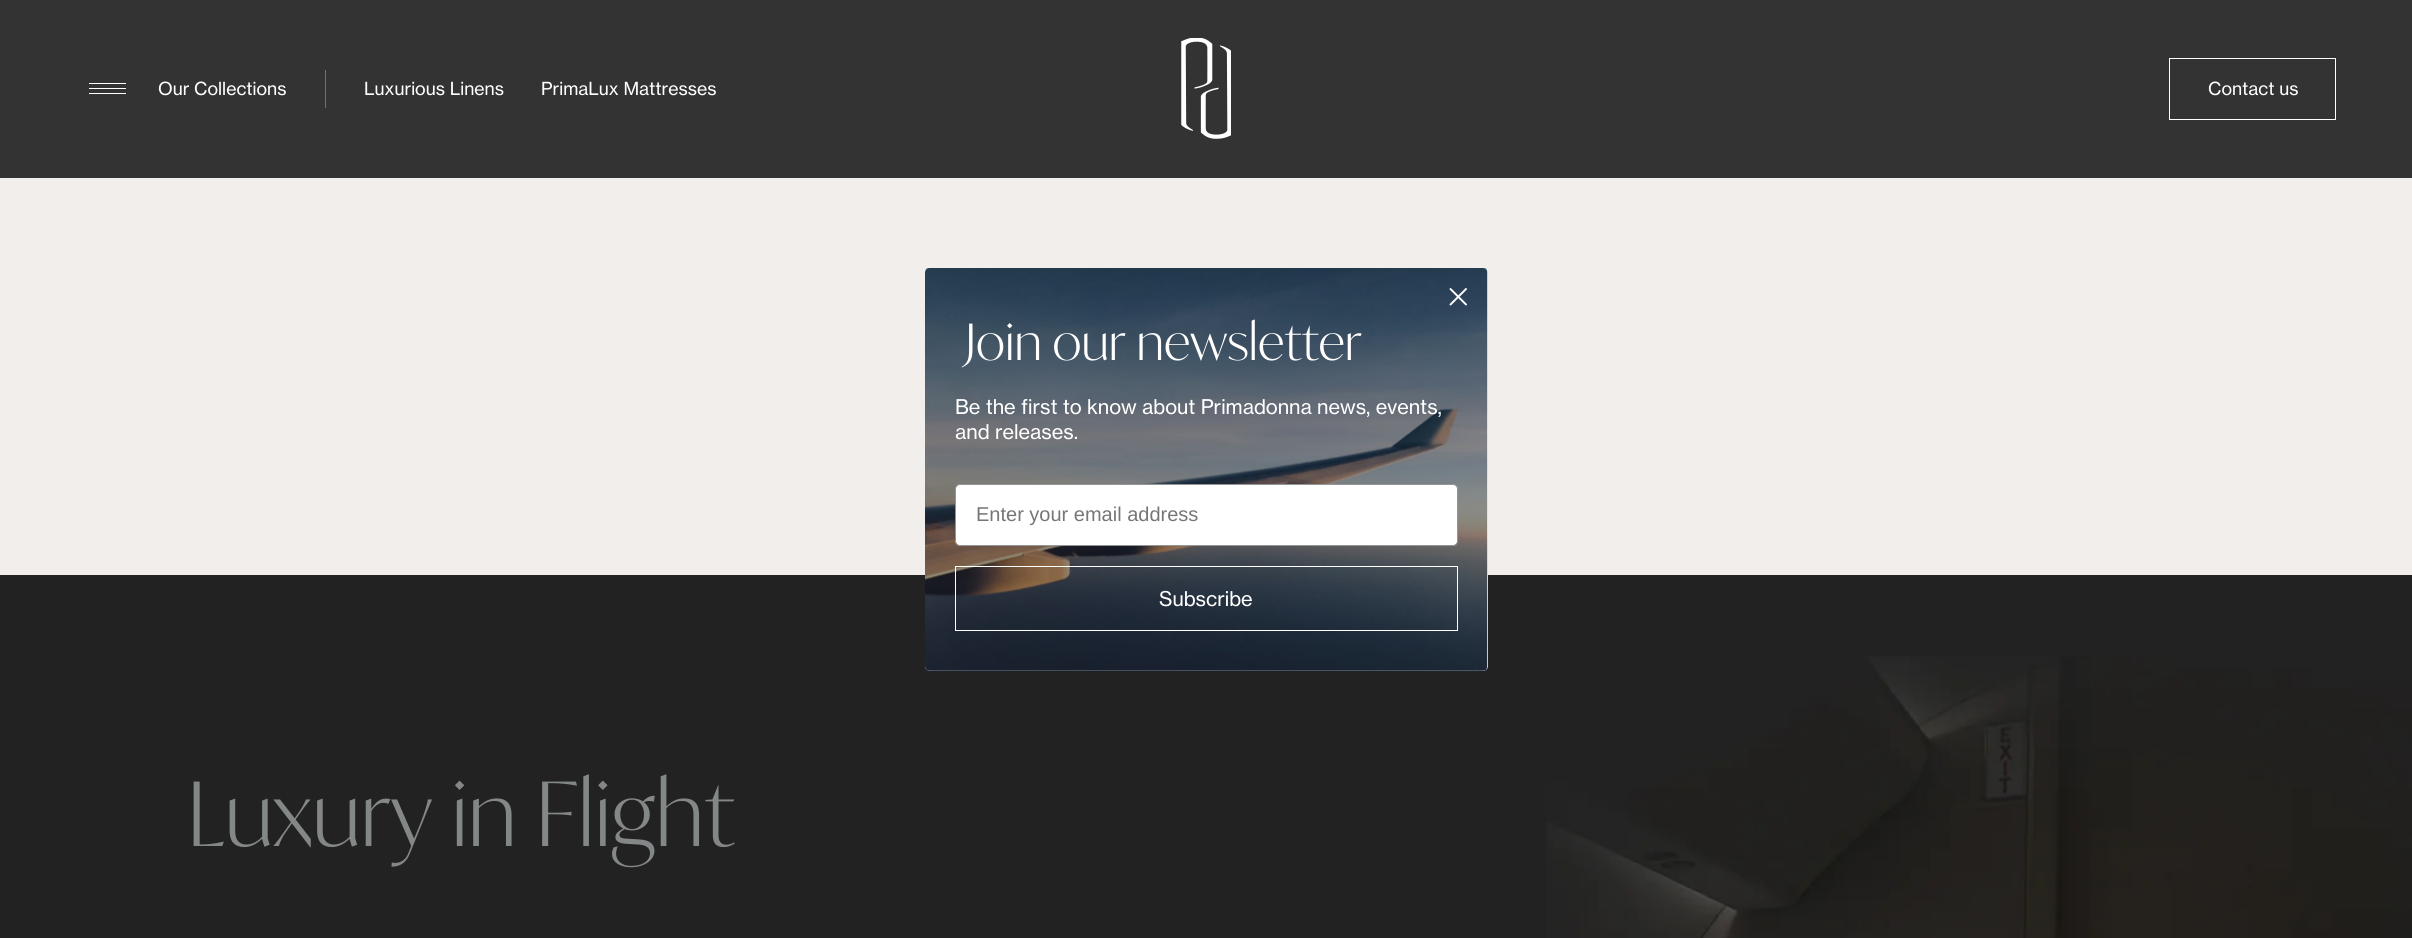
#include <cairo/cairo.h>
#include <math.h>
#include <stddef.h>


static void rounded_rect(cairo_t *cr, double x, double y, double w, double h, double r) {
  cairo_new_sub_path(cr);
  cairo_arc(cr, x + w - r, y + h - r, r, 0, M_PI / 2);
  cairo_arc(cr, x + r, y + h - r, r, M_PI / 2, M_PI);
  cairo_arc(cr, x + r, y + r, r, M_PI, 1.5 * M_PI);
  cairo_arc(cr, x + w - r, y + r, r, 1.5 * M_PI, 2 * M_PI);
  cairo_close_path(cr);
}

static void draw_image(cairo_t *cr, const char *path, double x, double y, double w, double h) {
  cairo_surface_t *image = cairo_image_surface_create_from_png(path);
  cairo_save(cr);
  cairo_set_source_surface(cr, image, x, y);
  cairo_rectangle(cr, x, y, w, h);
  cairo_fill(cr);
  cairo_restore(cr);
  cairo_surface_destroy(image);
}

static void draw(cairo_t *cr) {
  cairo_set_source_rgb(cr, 242 / 255.0, 238 / 255.0, 236 / 255.0);
  cairo_paint(cr);
  cairo_set_source_rgb(cr, 51 / 255.0, 51 / 255.0, 51 / 255.0);
  cairo_rectangle(cr, 0, 0, 2412, 178);
  cairo_fill(cr);
  cairo_set_source_rgb(cr, 1, 1, 1);
  cairo_rectangle(cr, 89, 88, 37, 1);
  cairo_fill(cr);
  cairo_rectangle(cr, 89, 83, 37, 1);
  cairo_fill(cr);
  cairo_rectangle(cr, 89, 93, 37, 1);
  cairo_fill(cr);
  cairo_set_source_rgb(cr, 112 / 255.0, 112 / 255.0, 112 / 255.0);
  cairo_rectangle(cr, 325, 70, 1, 38);
  cairo_fill(cr);
  draw_image(cr, "images/1.png", 1181, 38, 50, 101);
  cairo_rectangle(cr, 2169.5, 58.5, 166, 61);
  cairo_set_source_rgb(cr, 1, 1, 1);
  cairo_set_line_width(cr, 1);
  cairo_stroke(cr);
  cairo_set_source_rgb(cr, 34 / 255.0, 34 / 255.0, 34 / 255.0);
  cairo_rectangle(cr, 0, 575, 2412, 363);
  cairo_fill(cr);
  draw_image(cr, "images/2.png", 1546, 656, 866, 282);
  cairo_set_source_rgb(cr, 1, 1, 1);
  rounded_rect(cr, 925, 268, 563, 403, 5);
  cairo_fill(cr);
  draw_image(cr, "images/3.png", 925, 268, 563, 404);
  cairo_new_path(cr);
  cairo_move_to(cr, 1450.5, 289);
  cairo_line_to(cr, 1466, 304.5);
  cairo_move_to(cr, 1450.5, 304.5);
  cairo_line_to(cr, 1466, 289);
  cairo_close_path(cr);
  cairo_set_line_width(cr, 1.9);
  cairo_set_line_cap(cr, CAIRO_LINE_CAP_ROUND);
  cairo_set_line_join(cr, CAIRO_LINE_JOIN_ROUND);
  cairo_stroke(cr);
  rounded_rect(cr, 955.5, 484.5, 502, 61, 4.5);
  cairo_fill_preserve(cr);
  cairo_set_source_rgb(cr, 148 / 255.0, 149 / 255.0, 150 / 255.0);
  cairo_set_line_width(cr, 1);
  cairo_set_line_cap(cr, CAIRO_LINE_CAP_BUTT);
  cairo_set_line_join(cr, CAIRO_LINE_JOIN_MITER);
  cairo_stroke(cr);
  cairo_rectangle(cr, 955.5, 566.5, 502, 64);
  cairo_set_source_rgb(cr, 1, 1, 1);
  cairo_stroke(cr);
  cairo_select_font_face(cr, "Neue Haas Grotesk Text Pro", CAIRO_FONT_SLANT_NORMAL, CAIRO_FONT_WEIGHT_NORMAL);
  cairo_set_font_size(cr, 17.75);
  cairo_move_to(cr, 158, 95);
  cairo_show_text(cr, "Our Collections");
  cairo_move_to(cr, 364, 95);
  cairo_show_text(cr, "Luxurious Linens");
  cairo_move_to(cr, 541, 95);
  cairo_show_text(cr, "PrimaLux Mattresses");
  cairo_move_to(cr, 2208, 95);
  cairo_show_text(cr, "Contact us");
  cairo_select_font_face(cr, "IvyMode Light", CAIRO_FONT_SLANT_NORMAL, CAIRO_FONT_WEIGHT_NORMAL);
  cairo_set_font_size(cr, 88.5);
  cairo_set_source_rgb(cr, 132 / 255.0, 135 / 255.0, 136 / 255.0);
  cairo_move_to(cr, 187, 846);
  cairo_show_text(cr, "Luxury in Flight");
  cairo_set_font_size(cr, 50);
  cairo_set_source_rgb(cr, 1, 1, 1);
  cairo_move_to(cr, 965, 360);
  cairo_show_text(cr, "Join our newsletter");
  cairo_select_font_face(cr, "Neue Haas Grotesk Text Pro", CAIRO_FONT_SLANT_NORMAL, CAIRO_FONT_WEIGHT_NORMAL);
  cairo_set_font_size(cr, 20);
  cairo_move_to(cr, 955, 414);
  cairo_show_text(cr, "Be the first to know about Primadonna news, events,");
  cairo_move_to(cr, 955, 439);
  cairo_show_text(cr, "and releases.");
  cairo_select_font_face(cr, "Liberation Sans", CAIRO_FONT_SLANT_NORMAL, CAIRO_FONT_WEIGHT_NORMAL);
  cairo_set_source_rgb(cr, 118 / 255.0, 118 / 255.0, 118 / 255.0);
  cairo_move_to(cr, 976, 521);
  cairo_show_text(cr, "Enter your email address");
  cairo_select_font_face(cr, "Neue Haas Grotesk Text Pro", CAIRO_FONT_SLANT_NORMAL, CAIRO_FONT_WEIGHT_NORMAL);
  cairo_set_source_rgb(cr, 1, 1, 1);
  cairo_move_to(cr, 1159, 606);
  cairo_show_text(cr, "Subscribe");
}

int main(void) {
  cairo_surface_t *surface = cairo_image_surface_create(CAIRO_FORMAT_RGB24, 2412, 938);
  cairo_t *cr = cairo_create(surface);
  cairo_font_options_t *options = cairo_font_options_create();
  cairo_font_options_set_hint_metrics(options, CAIRO_HINT_METRICS_OFF);
  cairo_font_options_set_hint_style(options, CAIRO_HINT_STYLE_NONE);
  cairo_set_font_options(cr, options);
  cairo_set_miter_limit(cr, 4);
  draw(cr);
  cairo_surface_write_to_png(surface, "out.png");
  cairo_font_options_destroy(options);
  cairo_destroy(cr);
  cairo_surface_destroy(surface);
  return 0;
}
